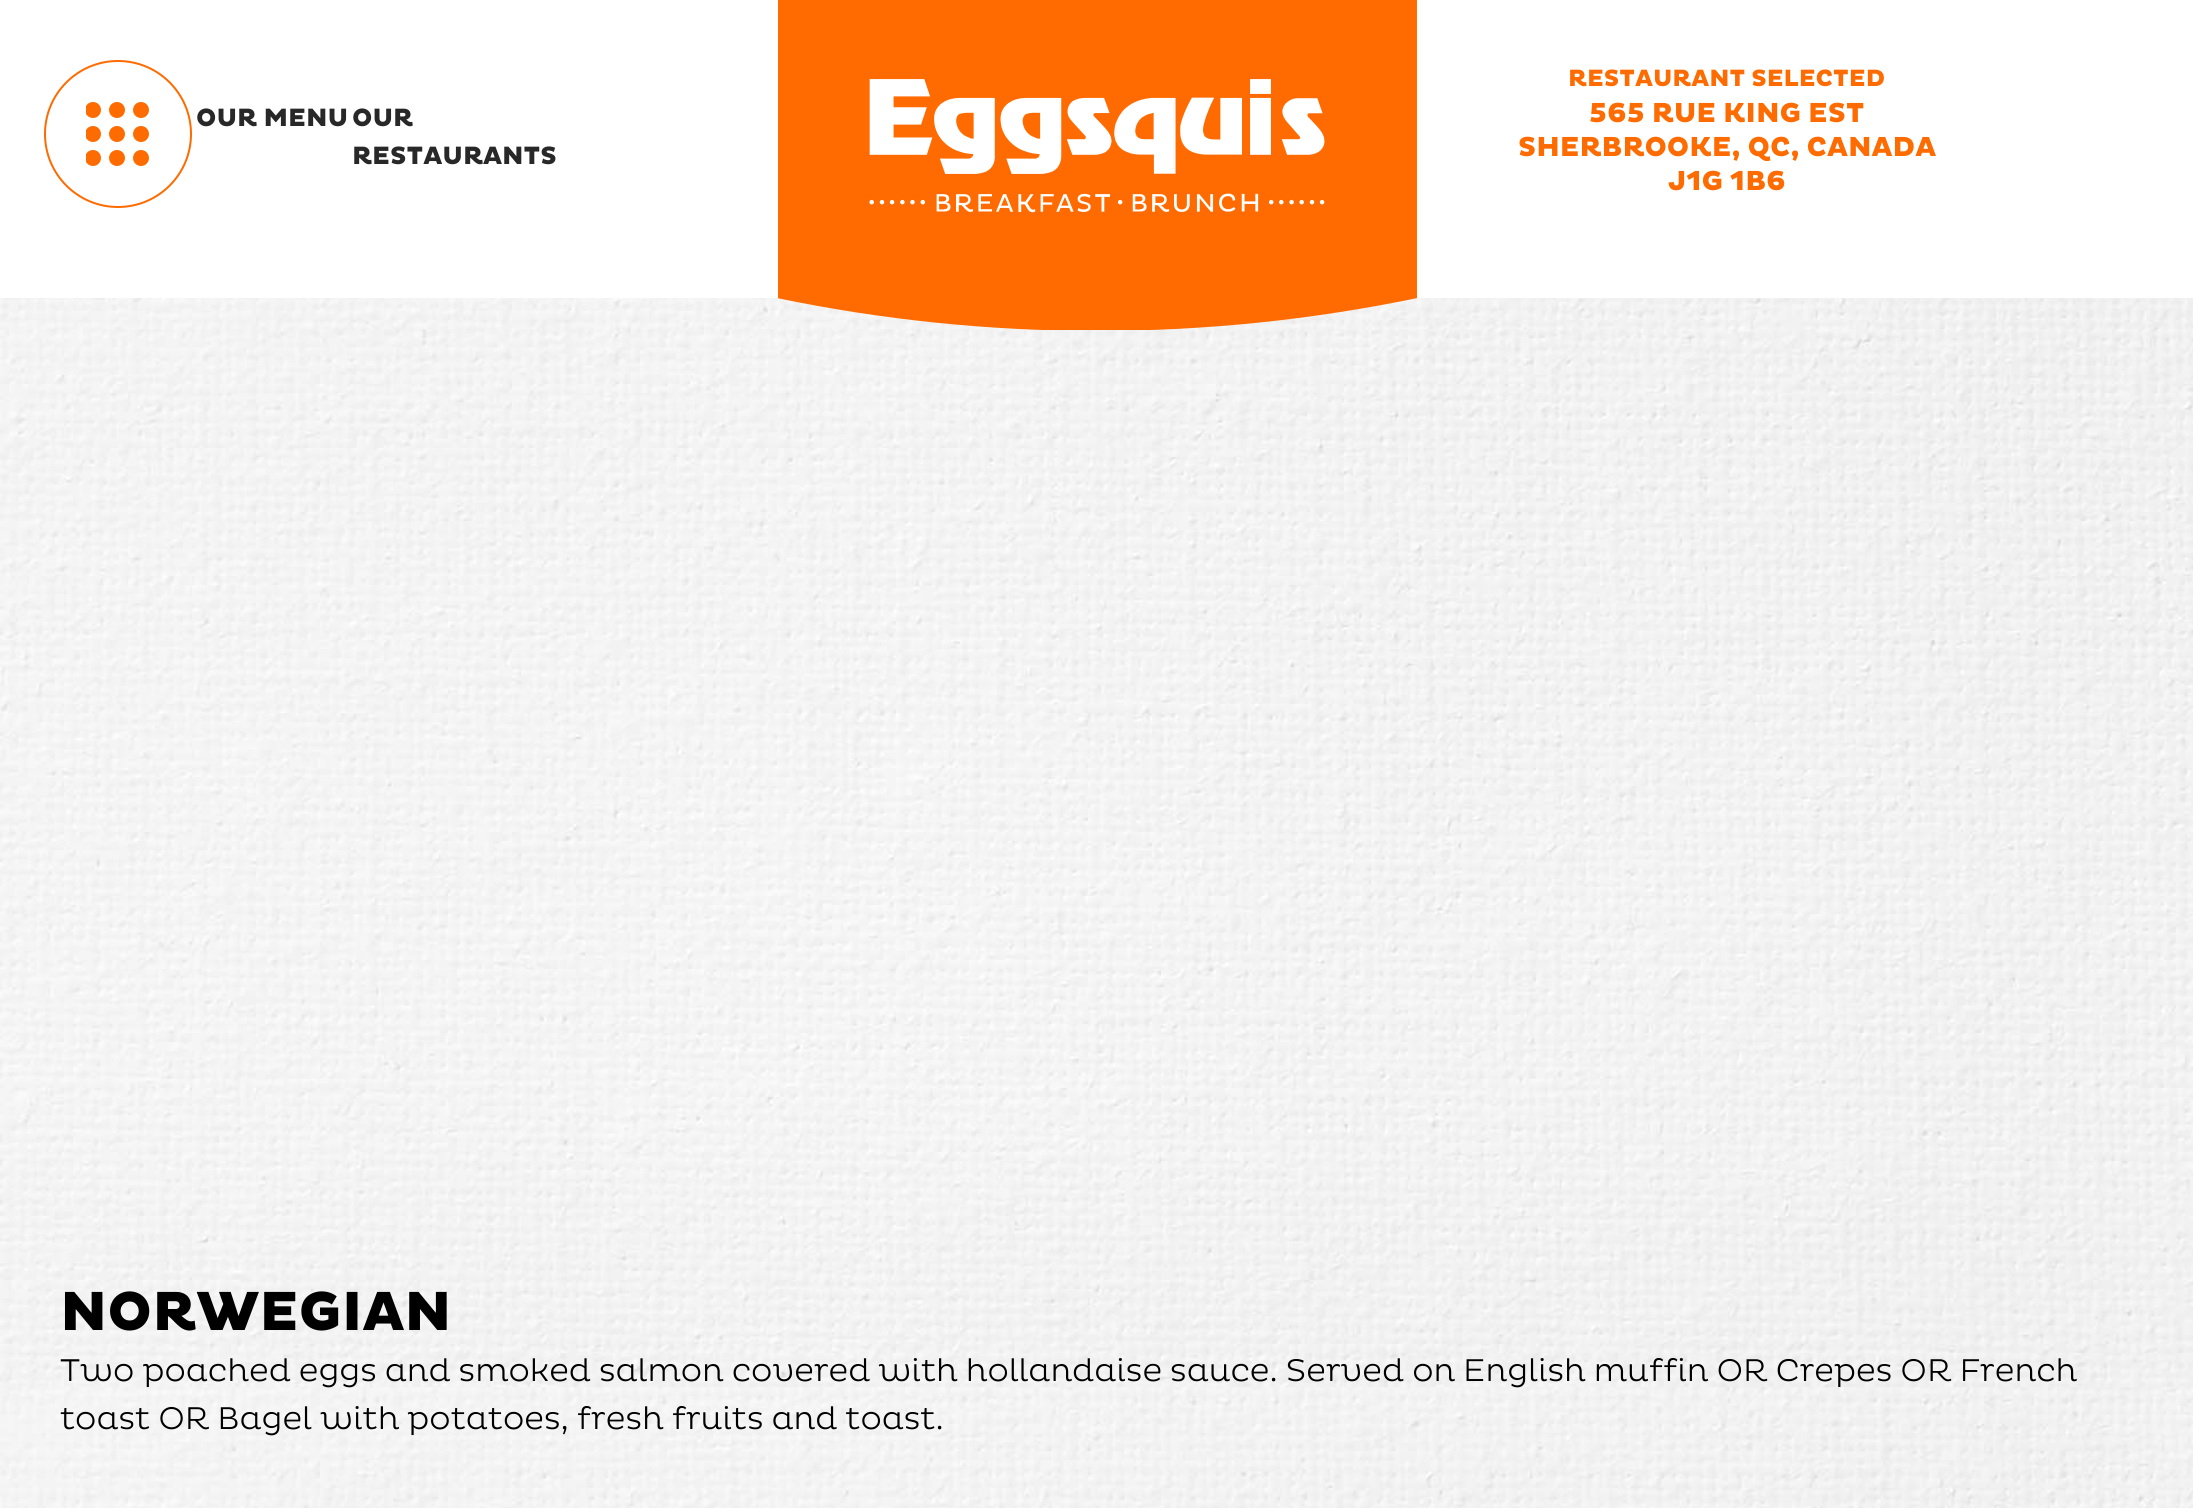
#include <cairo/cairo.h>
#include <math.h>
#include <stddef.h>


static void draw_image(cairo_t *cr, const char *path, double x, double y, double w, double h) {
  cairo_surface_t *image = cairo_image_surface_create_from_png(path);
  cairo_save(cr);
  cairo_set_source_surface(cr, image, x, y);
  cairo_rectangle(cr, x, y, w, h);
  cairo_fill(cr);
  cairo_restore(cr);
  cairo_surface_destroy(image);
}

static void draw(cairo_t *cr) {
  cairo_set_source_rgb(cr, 1, 1, 1);
  cairo_paint(cr);
  cairo_arc(cr, 118, 134, 73, 0, 2 * M_PI);
  cairo_set_source_rgb(cr, 254 / 255.0, 107 / 255.0, 0);
  cairo_stroke(cr);
  cairo_save(cr);
  cairo_rectangle(cr, 86, 102, 64, 64);
  cairo_clip(cr);
  cairo_arc(cr, 93, 110, 8, 0, 2 * M_PI);
  cairo_fill(cr);
  cairo_restore(cr);
  cairo_arc(cr, 117, 110, 8, 0, 2 * M_PI);
  cairo_fill(cr);
  cairo_arc(cr, 141, 110, 8, 0, 2 * M_PI);
  cairo_fill(cr);
  cairo_save(cr);
  cairo_rectangle(cr, 86, 102, 64, 64);
  cairo_clip(cr);
  cairo_arc(cr, 93, 134, 8, 0, 2 * M_PI);
  cairo_fill(cr);
  cairo_restore(cr);
  cairo_arc(cr, 117, 134, 8, 0, 2 * M_PI);
  cairo_fill(cr);
  cairo_arc(cr, 141, 134, 8, 0, 2 * M_PI);
  cairo_fill(cr);
  cairo_save(cr);
  cairo_rectangle(cr, 86, 102, 64, 64);
  cairo_clip(cr);
  cairo_arc(cr, 93, 158, 8, 0, 2 * M_PI);
  cairo_fill(cr);
  cairo_restore(cr);
  cairo_arc(cr, 117, 158, 8, 0, 2 * M_PI);
  cairo_fill(cr);
  cairo_arc(cr, 141, 158, 8, 0, 2 * M_PI);
  cairo_fill(cr);
  draw_image(cr, "images/2.png", 0, 298, 2193, 1210);
  draw_image(cr, "images/1.png", 778, 0, 639, 330);
  cairo_select_font_face(cr, "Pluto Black", CAIRO_FONT_SLANT_NORMAL, CAIRO_FONT_WEIGHT_NORMAL);
  cairo_set_font_size(cr, 25.5);
  cairo_set_source_rgb(cr, 40 / 255.0, 40 / 255.0, 40 / 255.0);
  cairo_move_to(cr, 196, 126);
  cairo_show_text(cr, "OUR MENU");
  cairo_move_to(cr, 352, 126);
  cairo_show_text(cr, "OUR");
  cairo_move_to(cr, 352, 164);
  cairo_show_text(cr, "RESTAURANTS");
  cairo_set_font_size(cr, 24);
  cairo_set_source_rgb(cr, 254 / 255.0, 107 / 255.0, 0);
  cairo_move_to(cr, 1568, 86);
  cairo_show_text(cr, "RESTAURANT SELECTED");
  cairo_set_font_size(cr, 28);
  cairo_move_to(cr, 1589, 122);
  cairo_show_text(cr, "565 RUE KING EST");
  cairo_move_to(cr, 1518, 156);
  cairo_show_text(cr, "SHERBROOKE, QC, CANADA");
  cairo_move_to(cr, 1668, 190);
  cairo_show_text(cr, "J1G 1B6");
  cairo_set_font_size(cr, 56);
  cairo_set_source_rgb(cr, 0, 0, 0);
  cairo_move_to(cr, 60, 1330);
  cairo_show_text(cr, "NORWEGIAN");
  cairo_select_font_face(cr, "Pluto Light", CAIRO_FONT_SLANT_NORMAL, CAIRO_FONT_WEIGHT_NORMAL);
  cairo_set_font_size(cr, 32);
  cairo_move_to(cr, 60, 1381);
  cairo_show_text(cr, "Two poached eggs and smoked salmon covered with hollandaise sauce. Served on English muffin OR Crepes OR French");
  cairo_move_to(cr, 60, 1429);
  cairo_show_text(cr, "toast OR Bagel with potatoes, fresh fruits and toast.");
}

int main(void) {
  cairo_surface_t *surface = cairo_image_surface_create(CAIRO_FORMAT_RGB24, 2193, 1508);
  cairo_t *cr = cairo_create(surface);
  cairo_font_options_t *options = cairo_font_options_create();
  cairo_font_options_set_hint_metrics(options, CAIRO_HINT_METRICS_OFF);
  cairo_font_options_set_hint_style(options, CAIRO_HINT_STYLE_NONE);
  cairo_set_font_options(cr, options);
  cairo_set_miter_limit(cr, 4);
  draw(cr);
  cairo_surface_write_to_png(surface, "out.png");
  cairo_font_options_destroy(options);
  cairo_destroy(cr);
  cairo_surface_destroy(surface);
  return 0;
}
